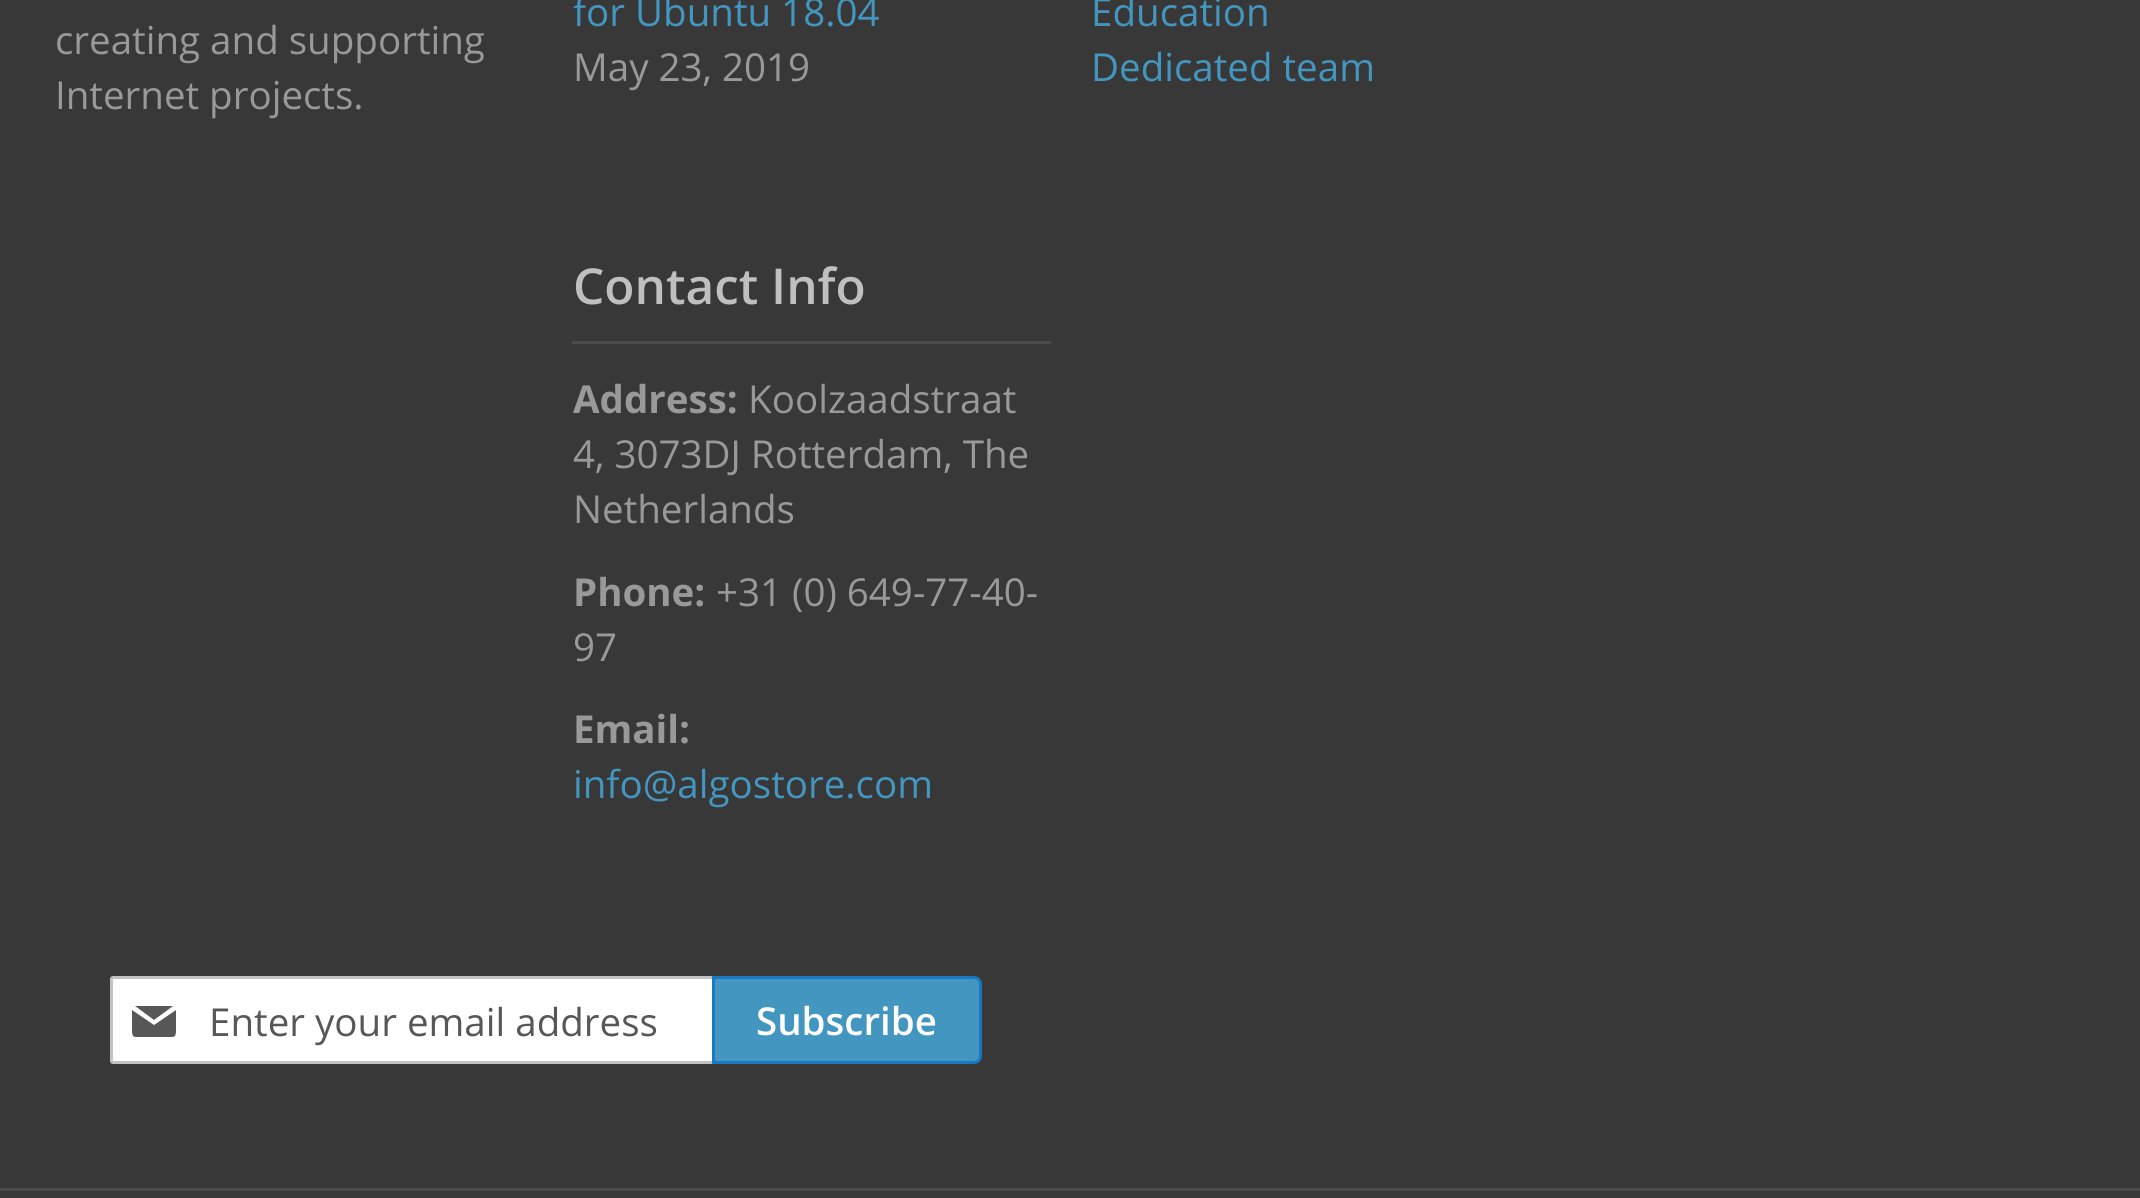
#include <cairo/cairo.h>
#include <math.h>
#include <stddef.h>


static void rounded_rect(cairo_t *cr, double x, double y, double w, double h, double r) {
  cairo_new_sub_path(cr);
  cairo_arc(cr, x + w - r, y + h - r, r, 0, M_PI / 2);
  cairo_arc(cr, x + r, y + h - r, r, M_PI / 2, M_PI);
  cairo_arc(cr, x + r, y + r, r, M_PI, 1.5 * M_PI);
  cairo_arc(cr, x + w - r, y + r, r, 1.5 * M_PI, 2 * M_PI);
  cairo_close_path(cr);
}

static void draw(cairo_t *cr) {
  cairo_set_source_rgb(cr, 56 / 255.0, 56 / 255.0, 56 / 255.0);
  cairo_paint(cr);
  cairo_set_source_rgb(cr, 76 / 255.0, 76 / 255.0, 76 / 255.0);
  cairo_rectangle(cr, 572, 341, 479, 3);
  cairo_fill(cr);
  cairo_set_source_rgb(cr, 1, 1, 1);
  rounded_rect(cr, 111.5, 977.5, 602, 85, 1.5);
  cairo_fill_preserve(cr);
  cairo_set_source_rgb(cr, 194 / 255.0, 194 / 255.0, 194 / 255.0);
  cairo_set_line_width(cr, 3);
  cairo_stroke(cr);
  cairo_set_source_rgb(cr, 87 / 255.0, 87 / 255.0, 87 / 255.0);
  cairo_new_path(cr);
  cairo_move_to(cr, 154, 1020);
  cairo_line_to(cr, 173, 1006);
  cairo_line_to(cr, 135, 1006);
  cairo_close_path(cr);
  cairo_move_to(cr, 154, 1025);
  cairo_line_to(cr, 132, 1010);
  cairo_line_to(cr, 132, 1029);
  cairo_curve_to(cr, 132, 1038, 133, 1037, 142, 1037);
  cairo_line_to(cr, 166, 1037);
  cairo_curve_to(cr, 175, 1037, 176, 1038, 176, 1029);
  cairo_line_to(cr, 176, 1010);
  cairo_close_path(cr);
  cairo_fill(cr);
  cairo_set_source_rgb(cr, 67 / 255.0, 150 / 255.0, 191 / 255.0);
  cairo_new_path(cr);
  cairo_move_to(cr, 713.5, 977.5);
  cairo_line_to(cr, 974, 977.5);
  cairo_curve_to(cr, 977.5, 977.5, 980.5, 980.5, 980.5, 984);
  cairo_line_to(cr, 980.5, 1056);
  cairo_curve_to(cr, 980.5, 1059.5, 977.5, 1062.5, 974, 1062.5);
  cairo_line_to(cr, 713.5, 1062.5);
  cairo_close_path(cr);
  cairo_fill_preserve(cr);
  cairo_set_source_rgb(cr, 25 / 255.0, 121 / 255.0, 195 / 255.0);
  cairo_stroke(cr);
  cairo_set_source_rgb(cr, 76 / 255.0, 76 / 255.0, 76 / 255.0);
  cairo_rectangle(cr, 0, 1188, 2140, 3);
  cairo_fill(cr);
  cairo_select_font_face(cr, "Open Sans", CAIRO_FONT_SLANT_NORMAL, CAIRO_FONT_WEIGHT_NORMAL);
  cairo_set_font_size(cr, 38.5);
  cairo_set_source_rgb(cr, 153 / 255.0, 153 / 255.0, 153 / 255.0);
  cairo_move_to(cr, 55, 54);
  cairo_show_text(cr, "creating and supporting");
  cairo_move_to(cr, 55, 109);
  cairo_show_text(cr, "Internet projects.");
  cairo_set_source_rgb(cr, 67 / 255.0, 150 / 255.0, 191 / 255.0);
  cairo_move_to(cr, 573, 26);
  cairo_show_text(cr, "for Ubuntu 18.04");
  cairo_set_source_rgb(cr, 153 / 255.0, 153 / 255.0, 153 / 255.0);
  cairo_move_to(cr, 573, 81);
  cairo_show_text(cr, "May 23, 2019");
  cairo_set_source_rgb(cr, 67 / 255.0, 150 / 255.0, 191 / 255.0);
  cairo_move_to(cr, 1091, 26);
  cairo_show_text(cr, "Education");
  cairo_move_to(cr, 1091, 81);
  cairo_show_text(cr, "Dedicated team");
  cairo_select_font_face(cr, "Open Sans SemiBold", CAIRO_FONT_SLANT_NORMAL, CAIRO_FONT_WEIGHT_NORMAL);
  cairo_set_font_size(cr, 49.5);
  cairo_set_source_rgb(cr, 191 / 255.0, 191 / 255.0, 191 / 255.0);
  cairo_move_to(cr, 573, 304);
  cairo_show_text(cr, "Contact Info");
  cairo_select_font_face(cr, "Open Sans", CAIRO_FONT_SLANT_NORMAL, CAIRO_FONT_WEIGHT_BOLD);
  cairo_set_font_size(cr, 38.5);
  cairo_set_source_rgb(cr, 153 / 255.0, 153 / 255.0, 153 / 255.0);
  cairo_move_to(cr, 573, 413);
  cairo_show_text(cr, "Address:");
  cairo_select_font_face(cr, "Open Sans", CAIRO_FONT_SLANT_NORMAL, CAIRO_FONT_WEIGHT_NORMAL);
  cairo_move_to(cr, 748, 413);
  cairo_show_text(cr, "Koolzaadstraat");
  cairo_move_to(cr, 573, 468);
  cairo_show_text(cr, "4, 3073DJ Rotterdam, The");
  cairo_move_to(cr, 573, 523);
  cairo_show_text(cr, "Netherlands");
  cairo_select_font_face(cr, "Open Sans", CAIRO_FONT_SLANT_NORMAL, CAIRO_FONT_WEIGHT_BOLD);
  cairo_move_to(cr, 573, 606);
  cairo_show_text(cr, "Phone:");
  cairo_select_font_face(cr, "Open Sans", CAIRO_FONT_SLANT_NORMAL, CAIRO_FONT_WEIGHT_NORMAL);
  cairo_move_to(cr, 716, 606);
  cairo_show_text(cr, "+31 (0) 649-77-40-");
  cairo_move_to(cr, 573, 661);
  cairo_show_text(cr, "97");
  cairo_select_font_face(cr, "Open Sans", CAIRO_FONT_SLANT_NORMAL, CAIRO_FONT_WEIGHT_BOLD);
  cairo_move_to(cr, 573, 743);
  cairo_show_text(cr, "Email:");
  cairo_select_font_face(cr, "Open Sans", CAIRO_FONT_SLANT_NORMAL, CAIRO_FONT_WEIGHT_NORMAL);
  cairo_set_source_rgb(cr, 67 / 255.0, 150 / 255.0, 191 / 255.0);
  cairo_move_to(cr, 573, 798);
  cairo_show_text(cr, "info@algostore.com");
  cairo_set_source_rgb(cr, 87 / 255.0, 87 / 255.0, 87 / 255.0);
  cairo_move_to(cr, 209, 1036);
  cairo_show_text(cr, "Enter your email address");
  cairo_select_font_face(cr, "Open Sans SemiBold", CAIRO_FONT_SLANT_NORMAL, CAIRO_FONT_WEIGHT_NORMAL);
  cairo_set_source_rgb(cr, 1, 1, 1);
  cairo_move_to(cr, 756, 1035);
  cairo_show_text(cr, "Subscribe");
}

int main(void) {
  cairo_surface_t *surface = cairo_image_surface_create(CAIRO_FORMAT_RGB24, 2140, 1198);
  cairo_t *cr = cairo_create(surface);
  cairo_font_options_t *options = cairo_font_options_create();
  cairo_font_options_set_hint_metrics(options, CAIRO_HINT_METRICS_OFF);
  cairo_font_options_set_hint_style(options, CAIRO_HINT_STYLE_NONE);
  cairo_set_font_options(cr, options);
  cairo_set_miter_limit(cr, 4);
  draw(cr);
  cairo_surface_write_to_png(surface, "out.png");
  cairo_font_options_destroy(options);
  cairo_destroy(cr);
  cairo_surface_destroy(surface);
  return 0;
}
